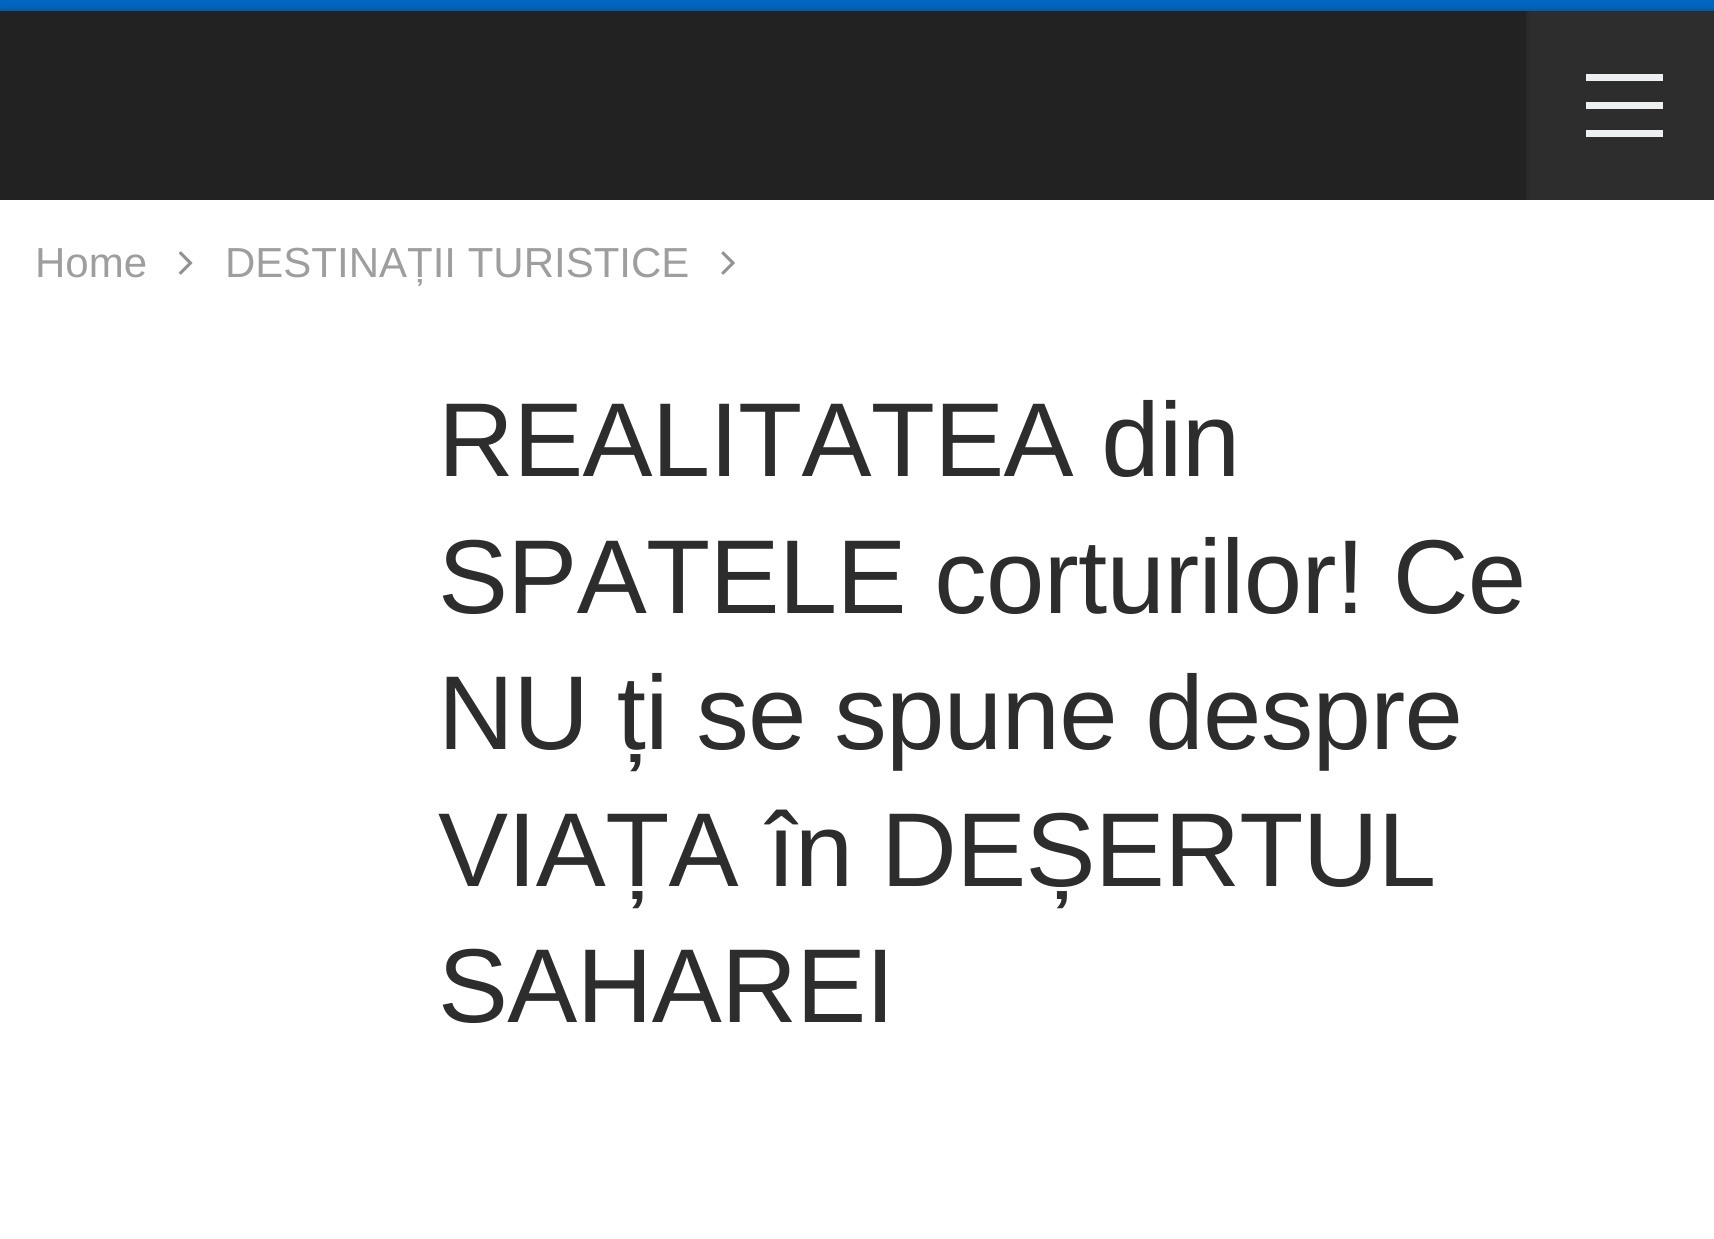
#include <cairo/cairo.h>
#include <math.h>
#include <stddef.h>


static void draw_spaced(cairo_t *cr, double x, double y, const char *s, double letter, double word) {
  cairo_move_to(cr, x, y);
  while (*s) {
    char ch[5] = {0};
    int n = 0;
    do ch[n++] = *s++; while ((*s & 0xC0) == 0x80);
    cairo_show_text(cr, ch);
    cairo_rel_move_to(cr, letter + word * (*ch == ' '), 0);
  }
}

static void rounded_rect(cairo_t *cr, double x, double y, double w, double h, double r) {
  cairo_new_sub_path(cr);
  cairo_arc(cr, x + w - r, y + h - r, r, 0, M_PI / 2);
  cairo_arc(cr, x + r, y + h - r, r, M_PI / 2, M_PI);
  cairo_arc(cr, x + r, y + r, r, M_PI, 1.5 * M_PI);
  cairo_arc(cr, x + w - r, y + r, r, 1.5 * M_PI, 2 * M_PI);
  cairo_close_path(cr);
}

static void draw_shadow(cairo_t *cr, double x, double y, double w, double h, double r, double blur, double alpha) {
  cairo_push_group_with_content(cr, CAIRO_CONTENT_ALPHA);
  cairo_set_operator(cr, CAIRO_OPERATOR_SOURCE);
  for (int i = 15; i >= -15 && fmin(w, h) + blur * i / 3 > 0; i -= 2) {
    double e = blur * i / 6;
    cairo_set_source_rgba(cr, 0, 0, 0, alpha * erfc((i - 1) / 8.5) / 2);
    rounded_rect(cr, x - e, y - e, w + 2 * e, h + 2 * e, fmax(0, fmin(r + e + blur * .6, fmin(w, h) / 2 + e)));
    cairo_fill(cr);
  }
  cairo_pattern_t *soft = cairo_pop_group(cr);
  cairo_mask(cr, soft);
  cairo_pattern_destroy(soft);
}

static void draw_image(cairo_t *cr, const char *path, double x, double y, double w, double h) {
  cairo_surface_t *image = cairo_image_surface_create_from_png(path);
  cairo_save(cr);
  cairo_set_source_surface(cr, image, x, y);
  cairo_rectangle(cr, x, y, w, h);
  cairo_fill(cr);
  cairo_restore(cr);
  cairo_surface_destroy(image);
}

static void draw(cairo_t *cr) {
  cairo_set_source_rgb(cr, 0, 102 / 255.0, 191 / 255.0);
  cairo_paint(cr);
  cairo_set_source_rgb(cr, 0, 0, 0);
  draw_shadow(cr, 0, 11, 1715, 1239, 0, 3.5, 0.27);
  cairo_set_source_rgb(cr, 1, 1, 1);
  cairo_rectangle(cr, 0, 200, 1714, 1039);
  cairo_fill(cr);
  cairo_set_source_rgb(cr, 34 / 255.0, 34 / 255.0, 34 / 255.0);
  cairo_rectangle(cr, 0, 11, 1526, 189);
  cairo_fill(cr);
  cairo_set_source_rgb(cr, 45 / 255.0, 45 / 255.0, 45 / 255.0);
  cairo_rectangle(cr, 1530, 11, 184, 189);
  cairo_fill(cr);
  cairo_set_source_rgb(cr, 42 / 255.0, 42 / 255.0, 42 / 255.0);
  cairo_rectangle(cr, 1526, 11, 4, 189);
  cairo_fill(cr);
  cairo_set_source_rgb(cr, 236 / 255.0, 240 / 255.0, 241 / 255.0);
  cairo_rectangle(cr, 1586, 102, 77, 7);
  cairo_fill(cr);
  cairo_rectangle(cr, 1586, 74, 77, 7);
  cairo_fill(cr);
  cairo_rectangle(cr, 1586, 130, 77, 7);
  cairo_fill(cr);
  draw_image(cr, "images/1.png", 178, 251, 15, 24);
  draw_image(cr, "images/2.png", 721, 251, 14, 24);
  cairo_select_font_face(cr, "Liberation Sans", CAIRO_FONT_SLANT_NORMAL, CAIRO_FONT_WEIGHT_NORMAL);
  cairo_set_font_size(cr, 42);
  cairo_set_source_rgb(cr, 158 / 255.0, 158 / 255.0, 158 / 255.0);
  cairo_move_to(cr, 35, 277);
  cairo_show_text(cr, "Home");
  cairo_move_to(cr, 225, 277);
  cairo_show_text(cr, "DESTINAȚII TURISTICE");
  cairo_set_font_size(cr, 105);
  cairo_set_source_rgb(cr, 45 / 255.0, 45 / 255.0, 45 / 255.0);
  draw_spaced(cr, 438, 476, "REALITATEA din", -0.7, 0);
  draw_spaced(cr, 438, 613, "SPATELE corturilor! Ce", -0.7, 0);
  draw_spaced(cr, 438, 749, "NU ți se spune despre", -0.7, 0);
  draw_spaced(cr, 438, 886, "VIAȚA în DEȘERTUL", -0.7, 0);
  draw_spaced(cr, 438, 1022, "SAHAREI", -0.7, 0);
}

int main(void) {
  cairo_surface_t *surface = cairo_image_surface_create(CAIRO_FORMAT_RGB24, 1714, 1239);
  cairo_t *cr = cairo_create(surface);
  cairo_font_options_t *options = cairo_font_options_create();
  cairo_font_options_set_hint_metrics(options, CAIRO_HINT_METRICS_OFF);
  cairo_font_options_set_hint_style(options, CAIRO_HINT_STYLE_NONE);
  cairo_set_font_options(cr, options);
  cairo_set_miter_limit(cr, 4);
  draw(cr);
  cairo_surface_write_to_png(surface, "out.png");
  cairo_font_options_destroy(options);
  cairo_destroy(cr);
  cairo_surface_destroy(surface);
  return 0;
}
